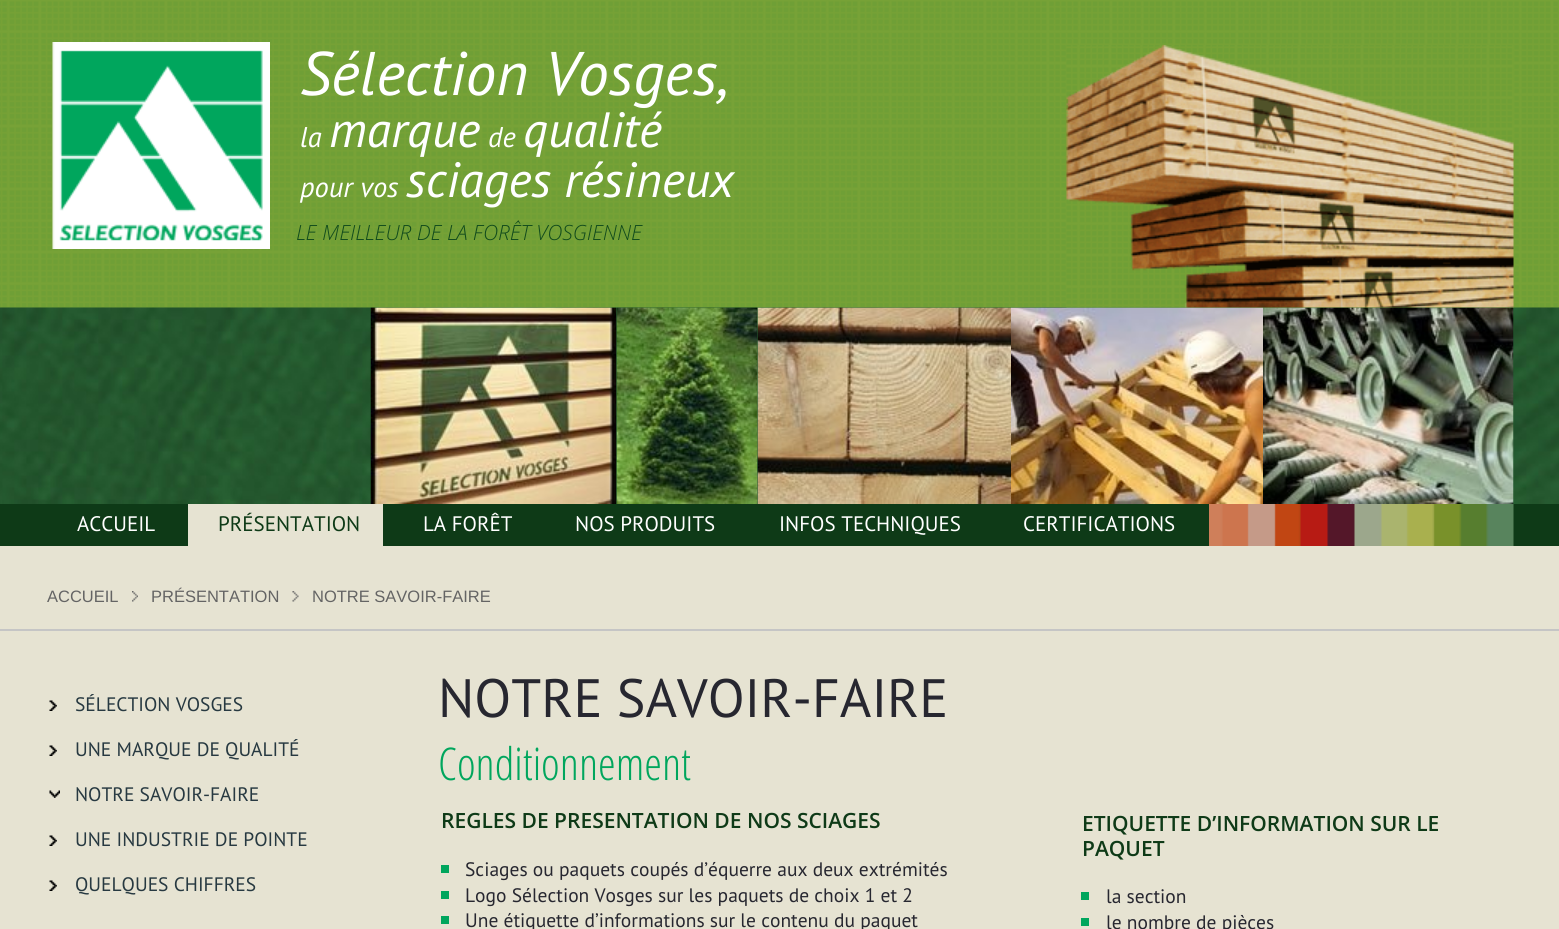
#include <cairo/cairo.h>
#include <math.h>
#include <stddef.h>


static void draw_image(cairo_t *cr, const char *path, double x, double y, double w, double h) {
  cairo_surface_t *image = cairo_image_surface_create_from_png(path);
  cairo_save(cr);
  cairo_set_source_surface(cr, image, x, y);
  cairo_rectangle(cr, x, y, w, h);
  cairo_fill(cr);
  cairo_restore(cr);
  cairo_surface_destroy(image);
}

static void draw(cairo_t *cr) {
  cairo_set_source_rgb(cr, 230 / 255.0, 227 / 255.0, 210 / 255.0);
  cairo_paint(cr);
  cairo_set_source_rgb(cr, 111 / 255.0, 159 / 255.0, 54 / 255.0);
  cairo_rectangle(cr, 0, 307, 1559, 1);
  cairo_fill(cr);
  draw_image(cr, "images/1.png", 0, 0, 1559, 307);
  draw_image(cr, "images/4.png", 0, 307, 1559, 197);
  draw_image(cr, "images/2.png", 1066, 45, 448, 263);
  draw_image(cr, "images/3.png", 52, 42, 218, 207);
  draw_image(cr, "images/5.png", 370, 307, 247, 197);
  draw_image(cr, "images/6.png", 616, 307, 142, 197);
  draw_image(cr, "images/7.png", 757, 307, 254, 197);
  draw_image(cr, "images/8.png", 1011, 307, 252, 197);
  draw_image(cr, "images/9.png", 1263, 307, 251, 197);
  cairo_set_source_rgb(cr, 14 / 255.0, 58 / 255.0, 23 / 255.0);
  cairo_rectangle(cr, 0, 504, 1559, 42);
  cairo_fill(cr);
  draw_image(cr, "images/10.png", 1209, 504, 305, 42);
  cairo_set_source_rgb(cr, 230 / 255.0, 227 / 255.0, 210 / 255.0);
  cairo_rectangle(cr, 188, 504, 195, 42);
  cairo_fill(cr);
  cairo_set_source_rgb(cr, 197 / 255.0, 197 / 255.0, 197 / 255.0);
  cairo_rectangle(cr, 0, 629, 1559, 2);
  cairo_fill(cr);
  draw_image(cr, "images/11.png", 132, 591, 6, 11);
  draw_image(cr, "images/12.png", 292, 591, 7, 11);
  draw_image(cr, "images/13.png", 49, 700, 8, 11);
  draw_image(cr, "images/13.png", 49, 745, 8, 11);
  draw_image(cr, "images/14.png", 49, 790, 11, 8);
  draw_image(cr, "images/13.png", 49, 835, 8, 11);
  draw_image(cr, "images/13.png", 49, 880, 8, 11);
  cairo_set_source_rgb(cr, 0, 166 / 255.0, 93 / 255.0);
  cairo_rectangle(cr, 441, 865, 8, 8);
  cairo_fill(cr);
  cairo_rectangle(cr, 441, 891, 8, 8);
  cairo_fill(cr);
  cairo_rectangle(cr, 441, 916, 8, 8);
  cairo_fill(cr);
  cairo_rectangle(cr, 1081, 892, 8, 8);
  cairo_fill(cr);
  cairo_rectangle(cr, 1081, 918, 8, 8);
  cairo_fill(cr);
  cairo_select_font_face(cr, "PT Sans", CAIRO_FONT_SLANT_ITALIC, CAIRO_FONT_WEIGHT_NORMAL);
  cairo_set_font_size(cr, 61.5);
  cairo_set_source_rgb(cr, 1, 1, 1);
  cairo_move_to(cr, 300, 95);
  cairo_show_text(cr, "Sélection Vosges,");
  cairo_set_font_size(cr, 28.5);
  cairo_move_to(cr, 300, 147);
  cairo_show_text(cr, "la");
  cairo_set_font_size(cr, 49.5);
  cairo_move_to(cr, 329, 147);
  cairo_show_text(cr, "marque");
  cairo_set_font_size(cr, 28.5);
  cairo_move_to(cr, 488, 147);
  cairo_show_text(cr, "de");
  cairo_set_font_size(cr, 49.5);
  cairo_move_to(cr, 523, 147);
  cairo_show_text(cr, "qualité");
  cairo_set_font_size(cr, 28.5);
  cairo_move_to(cr, 300, 197);
  cairo_show_text(cr, "pour vos");
  cairo_set_font_size(cr, 49.5);
  cairo_move_to(cr, 406, 197);
  cairo_show_text(cr, "sciages résineux");
  cairo_select_font_face(cr, "Open Sans Light", CAIRO_FONT_SLANT_ITALIC, CAIRO_FONT_WEIGHT_NORMAL);
  cairo_set_font_size(cr, 21);
  cairo_set_source_rgb(cr, 17 / 255.0, 75 / 255.0, 28 / 255.0);
  cairo_move_to(cr, 296, 240);
  cairo_show_text(cr, "LE MEILLEUR DE LA FORÊT VOSGIENNE");
  cairo_select_font_face(cr, "PT Sans", CAIRO_FONT_SLANT_NORMAL, CAIRO_FONT_WEIGHT_NORMAL);
  cairo_set_source_rgb(cr, 1, 1, 1);
  cairo_move_to(cr, 77, 531);
  cairo_show_text(cr, "ACCUEIL");
  cairo_set_source_rgb(cr, 14 / 255.0, 58 / 255.0, 23 / 255.0);
  cairo_move_to(cr, 218, 531);
  cairo_show_text(cr, "PRÉSENTATION");
  cairo_set_source_rgb(cr, 1, 1, 1);
  cairo_move_to(cr, 423, 531);
  cairo_show_text(cr, "LA FORÊT");
  cairo_move_to(cr, 575, 531);
  cairo_show_text(cr, "NOS PRODUITS");
  cairo_move_to(cr, 779, 531);
  cairo_show_text(cr, "INFOS TECHNIQUES");
  cairo_move_to(cr, 1023, 531);
  cairo_show_text(cr, "CERTIFICATIONS");
  cairo_select_font_face(cr, "Liberation Sans", CAIRO_FONT_SLANT_NORMAL, CAIRO_FONT_WEIGHT_NORMAL);
  cairo_set_font_size(cr, 16.5);
  cairo_set_source_rgb(cr, 100 / 255.0, 100 / 255.0, 100 / 255.0);
  cairo_move_to(cr, 47, 602);
  cairo_show_text(cr, "ACCUEIL");
  cairo_move_to(cr, 151, 602);
  cairo_show_text(cr, "PRÉSENTATION");
  cairo_move_to(cr, 312, 602);
  cairo_show_text(cr, "NOTRE SAVOIR-FAIRE");
  cairo_select_font_face(cr, "PT Sans", CAIRO_FONT_SLANT_NORMAL, CAIRO_FONT_WEIGHT_NORMAL);
  cairo_set_font_size(cr, 19.5);
  cairo_set_source_rgb(cr, 39 / 255.0, 57 / 255.0, 65 / 255.0);
  cairo_move_to(cr, 75, 711);
  cairo_show_text(cr, "SÉLECTION VOSGES");
  cairo_move_to(cr, 75, 756);
  cairo_show_text(cr, "UNE MARQUE DE QUALITÉ");
  cairo_move_to(cr, 75, 801);
  cairo_show_text(cr, "NOTRE SAVOIR-FAIRE");
  cairo_move_to(cr, 75, 846);
  cairo_show_text(cr, "UNE INDUSTRIE DE POINTE");
  cairo_move_to(cr, 75, 891);
  cairo_show_text(cr, "QUELQUES CHIFFRES");
  cairo_set_font_size(cr, 54);
  cairo_set_source_rgb(cr, 39 / 255.0, 39 / 255.0, 48 / 255.0);
  cairo_move_to(cr, 438, 717);
  cairo_show_text(cr, "NOTRE SAVOIR-FAIRE");
  cairo_select_font_face(cr, "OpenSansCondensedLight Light", CAIRO_FONT_SLANT_NORMAL, CAIRO_FONT_WEIGHT_NORMAL);
  cairo_set_font_size(cr, 45);
  cairo_set_source_rgb(cr, 0, 166 / 255.0, 93 / 255.0);
  cairo_move_to(cr, 438, 780);
  cairo_show_text(cr, "Conditionnement");
  cairo_select_font_face(cr, "Open Sans SemiBold", CAIRO_FONT_SLANT_NORMAL, CAIRO_FONT_WEIGHT_NORMAL);
  cairo_set_font_size(cr, 21);
  cairo_set_source_rgb(cr, 14 / 255.0, 58 / 255.0, 23 / 255.0);
  cairo_move_to(cr, 441, 828);
  cairo_show_text(cr, "REGLES DE PRESENTATION DE NOS SCIAGES");
  cairo_select_font_face(cr, "PT Sans", CAIRO_FONT_SLANT_NORMAL, CAIRO_FONT_WEIGHT_NORMAL);
  cairo_set_font_size(cr, 19.5);
  cairo_set_source_rgb(cr, 39 / 255.0, 39 / 255.0, 48 / 255.0);
  cairo_move_to(cr, 465, 876);
  cairo_show_text(cr, "Sciages ou paquets coupés d’équerre aux deux extrémités");
  cairo_move_to(cr, 465, 902);
  cairo_show_text(cr, "Logo Sélection Vosges sur les paquets de choix 1 et 2");
  cairo_move_to(cr, 465, 927);
  cairo_show_text(cr, "Une étiquette d’informations sur le contenu du paquet");
  cairo_select_font_face(cr, "Open Sans SemiBold", CAIRO_FONT_SLANT_NORMAL, CAIRO_FONT_WEIGHT_NORMAL);
  cairo_set_font_size(cr, 21);
  cairo_set_source_rgb(cr, 14 / 255.0, 58 / 255.0, 23 / 255.0);
  cairo_move_to(cr, 1082, 831);
  cairo_show_text(cr, "ETIQUETTE D’INFORMATION SUR LE");
  cairo_move_to(cr, 1082, 856);
  cairo_show_text(cr, "PAQUET");
  cairo_select_font_face(cr, "PT Sans", CAIRO_FONT_SLANT_NORMAL, CAIRO_FONT_WEIGHT_NORMAL);
  cairo_set_font_size(cr, 19.5);
  cairo_set_source_rgb(cr, 39 / 255.0, 39 / 255.0, 48 / 255.0);
  cairo_move_to(cr, 1106, 903);
  cairo_show_text(cr, "la section");
  cairo_move_to(cr, 1106, 929);
  cairo_show_text(cr, "le nombre de pièces");
}

int main(void) {
  cairo_surface_t *surface = cairo_image_surface_create(CAIRO_FORMAT_RGB24, 1559, 929);
  cairo_t *cr = cairo_create(surface);
  cairo_font_options_t *options = cairo_font_options_create();
  cairo_font_options_set_hint_metrics(options, CAIRO_HINT_METRICS_OFF);
  cairo_font_options_set_hint_style(options, CAIRO_HINT_STYLE_NONE);
  cairo_set_font_options(cr, options);
  cairo_set_miter_limit(cr, 4);
  draw(cr);
  cairo_surface_write_to_png(surface, "out.png");
  cairo_font_options_destroy(options);
  cairo_destroy(cr);
  cairo_surface_destroy(surface);
  return 0;
}
